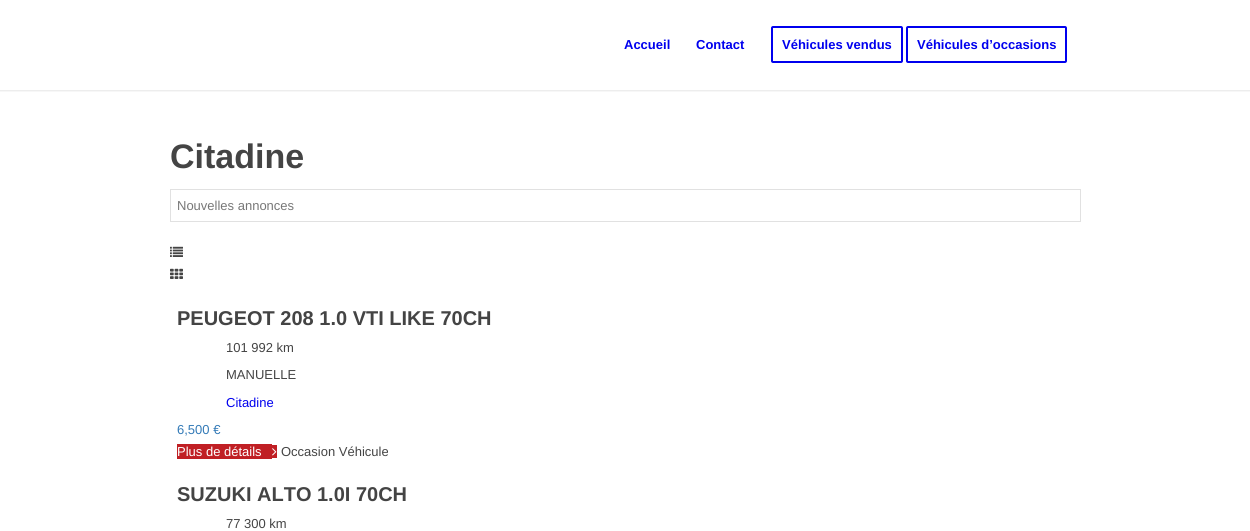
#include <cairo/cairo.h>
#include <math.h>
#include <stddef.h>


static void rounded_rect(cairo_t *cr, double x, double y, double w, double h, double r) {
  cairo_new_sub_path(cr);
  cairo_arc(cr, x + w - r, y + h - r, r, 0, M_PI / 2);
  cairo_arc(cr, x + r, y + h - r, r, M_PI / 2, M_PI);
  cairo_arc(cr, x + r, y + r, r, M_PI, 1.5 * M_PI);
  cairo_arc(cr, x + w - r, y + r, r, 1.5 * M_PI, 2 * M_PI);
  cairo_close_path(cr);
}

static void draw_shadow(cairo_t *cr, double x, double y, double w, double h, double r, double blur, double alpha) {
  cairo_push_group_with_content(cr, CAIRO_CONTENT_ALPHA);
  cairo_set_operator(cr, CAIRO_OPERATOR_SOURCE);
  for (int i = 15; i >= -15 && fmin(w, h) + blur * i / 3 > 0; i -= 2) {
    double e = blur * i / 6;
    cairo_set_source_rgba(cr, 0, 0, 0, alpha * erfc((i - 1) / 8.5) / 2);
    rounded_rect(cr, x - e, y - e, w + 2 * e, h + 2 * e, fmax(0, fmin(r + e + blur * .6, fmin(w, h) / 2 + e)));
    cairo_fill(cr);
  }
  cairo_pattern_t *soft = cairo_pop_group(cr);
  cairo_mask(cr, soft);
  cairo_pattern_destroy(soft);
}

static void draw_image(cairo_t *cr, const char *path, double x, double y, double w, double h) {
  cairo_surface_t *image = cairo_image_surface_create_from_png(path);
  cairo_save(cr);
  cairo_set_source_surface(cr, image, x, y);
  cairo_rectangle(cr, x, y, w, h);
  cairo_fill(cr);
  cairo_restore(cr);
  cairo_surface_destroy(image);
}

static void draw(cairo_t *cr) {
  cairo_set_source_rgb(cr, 1, 1, 1);
  cairo_paint(cr);
  cairo_save(cr);
  cairo_rectangle(cr, 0, 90, 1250, 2);
  cairo_clip(cr);
  cairo_set_source_rgb(cr, 0, 0, 0);
  draw_shadow(cr, -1, -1, 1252, 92, 0, 1, 0.1);
  cairo_restore(cr);
  rounded_rect(cr, 772, 27, 130, 35, 1);
  cairo_set_source_rgb(cr, 0, 0, 238 / 255.0);
  cairo_stroke(cr);
  rounded_rect(cr, 907, 27, 159, 35, 1);
  cairo_stroke(cr);
  cairo_rectangle(cr, 170.5, 189.5, 910, 32);
  cairo_set_source_rgb(cr, 225 / 255.0, 225 / 255.0, 225 / 255.0);
  cairo_set_line_width(cr, 1);
  cairo_stroke(cr);
  draw_image(cr, "images/1.png", 170, 246, 13, 11);
  draw_image(cr, "images/2.png", 170, 268, 13, 11);
  cairo_set_source_rgb(cr, 192 / 255.0, 31 / 255.0, 36 / 255.0);
  cairo_rectangle(cr, 177, 444, 95, 15);
  cairo_fill(cr);
  cairo_rectangle(cr, 272, 445, 5, 13);
  cairo_fill(cr);
  draw_image(cr, "images/3.png", 272, 448, 5, 8);
  cairo_select_font_face(cr, "Liberation Sans", CAIRO_FONT_SLANT_NORMAL, CAIRO_FONT_WEIGHT_BOLD);
  cairo_set_font_size(cr, 13);
  cairo_set_source_rgb(cr, 0, 0, 238 / 255.0);
  cairo_move_to(cr, 624, 49);
  cairo_show_text(cr, "Accueil");
  cairo_move_to(cr, 696, 49);
  cairo_show_text(cr, "Contact");
  cairo_move_to(cr, 782, 49);
  cairo_show_text(cr, "Véhicules vendus");
  cairo_move_to(cr, 917, 49);
  cairo_show_text(cr, "Véhicules d’occasions");
  cairo_set_font_size(cr, 34);
  cairo_set_source_rgb(cr, 68 / 255.0, 68 / 255.0, 68 / 255.0);
  cairo_move_to(cr, 170, 168);
  cairo_show_text(cr, "Citadine");
  cairo_select_font_face(cr, "Liberation Sans", CAIRO_FONT_SLANT_NORMAL, CAIRO_FONT_WEIGHT_NORMAL);
  cairo_set_font_size(cr, 13);
  cairo_set_source_rgb(cr, 119 / 255.0, 119 / 255.0, 119 / 255.0);
  cairo_move_to(cr, 177, 210);
  cairo_show_text(cr, "Nouvelles annonces");
  cairo_select_font_face(cr, "Liberation Sans", CAIRO_FONT_SLANT_NORMAL, CAIRO_FONT_WEIGHT_BOLD);
  cairo_set_font_size(cr, 20);
  cairo_set_source_rgb(cr, 68 / 255.0, 68 / 255.0, 68 / 255.0);
  cairo_move_to(cr, 177, 325);
  cairo_show_text(cr, "PEUGEOT 208 1.0 VTI LIKE 70CH");
  cairo_select_font_face(cr, "Liberation Sans", CAIRO_FONT_SLANT_NORMAL, CAIRO_FONT_WEIGHT_NORMAL);
  cairo_set_font_size(cr, 13);
  cairo_move_to(cr, 226, 352);
  cairo_show_text(cr, "101 992 km");
  cairo_move_to(cr, 226, 379);
  cairo_show_text(cr, "MANUELLE");
  cairo_set_source_rgb(cr, 0, 0, 238 / 255.0);
  cairo_move_to(cr, 226, 407);
  cairo_show_text(cr, "Citadine");
  cairo_set_source_rgb(cr, 51 / 255.0, 122 / 255.0, 183 / 255.0);
  cairo_move_to(cr, 177, 434);
  cairo_show_text(cr, "6,500 €");
  cairo_set_source_rgb(cr, 1, 1, 1);
  cairo_move_to(cr, 177, 456);
  cairo_show_text(cr, "Plus de détails");
  cairo_set_source_rgb(cr, 68 / 255.0, 68 / 255.0, 68 / 255.0);
  cairo_move_to(cr, 281, 456);
  cairo_show_text(cr, "Occasion Véhicule");
  cairo_select_font_face(cr, "Liberation Sans", CAIRO_FONT_SLANT_NORMAL, CAIRO_FONT_WEIGHT_BOLD);
  cairo_set_font_size(cr, 20);
  cairo_move_to(cr, 177, 501);
  cairo_show_text(cr, "SUZUKI ALTO 1.0I 70CH");
  cairo_select_font_face(cr, "Liberation Sans", CAIRO_FONT_SLANT_NORMAL, CAIRO_FONT_WEIGHT_NORMAL);
  cairo_set_font_size(cr, 13);
  cairo_move_to(cr, 226, 528);
  cairo_show_text(cr, "77 300 km");
}

int main(void) {
  cairo_surface_t *surface = cairo_image_surface_create(CAIRO_FORMAT_RGB24, 1250, 531);
  cairo_t *cr = cairo_create(surface);
  cairo_font_options_t *options = cairo_font_options_create();
  cairo_font_options_set_hint_metrics(options, CAIRO_HINT_METRICS_OFF);
  cairo_font_options_set_hint_style(options, CAIRO_HINT_STYLE_NONE);
  cairo_set_font_options(cr, options);
  cairo_set_miter_limit(cr, 4);
  draw(cr);
  cairo_surface_write_to_png(surface, "out.png");
  cairo_font_options_destroy(options);
  cairo_destroy(cr);
  cairo_surface_destroy(surface);
  return 0;
}
